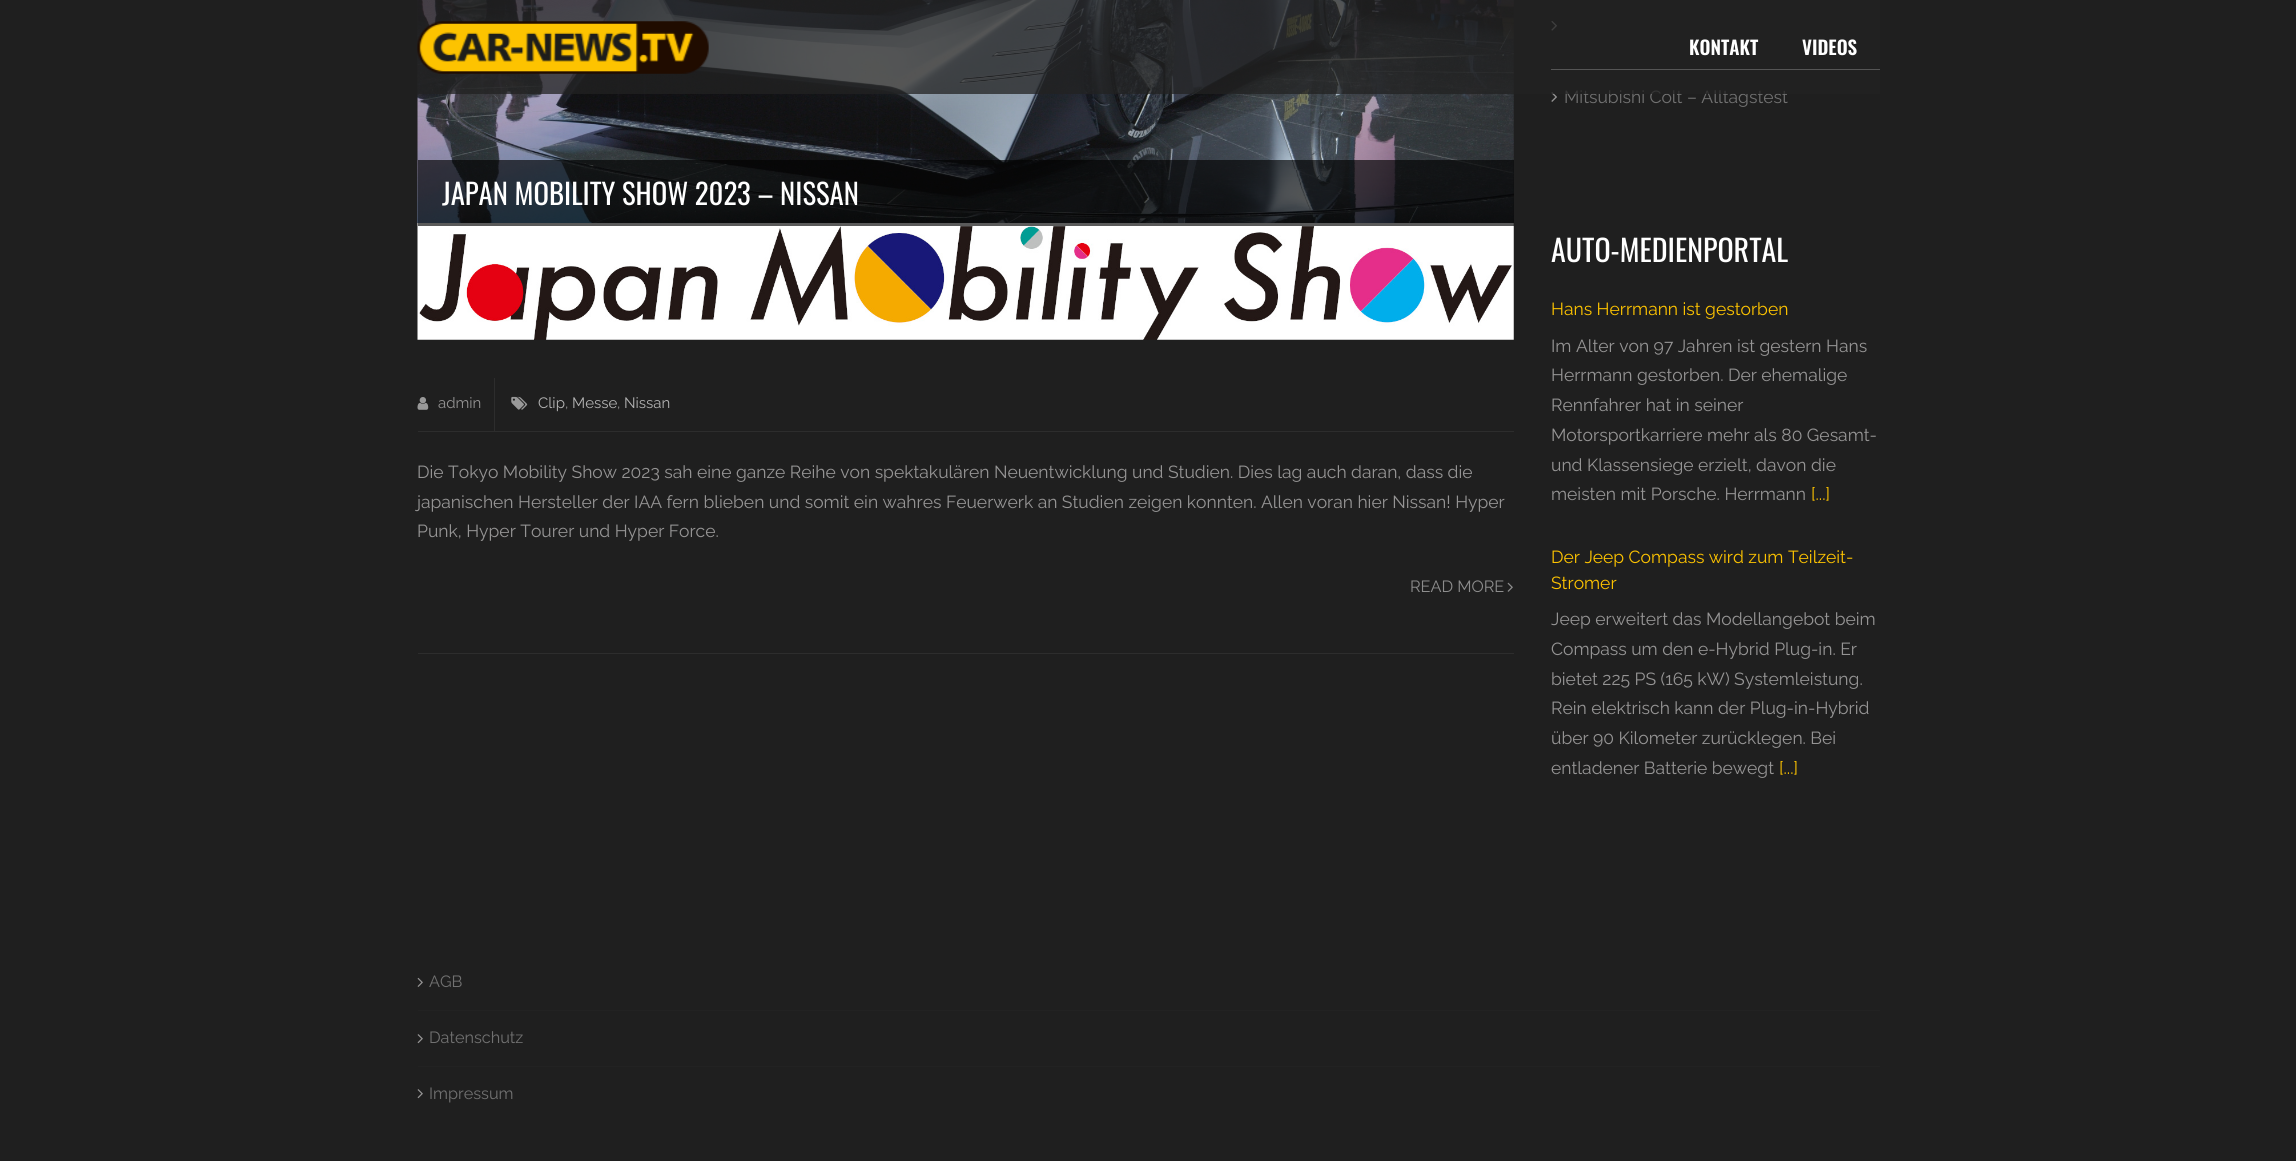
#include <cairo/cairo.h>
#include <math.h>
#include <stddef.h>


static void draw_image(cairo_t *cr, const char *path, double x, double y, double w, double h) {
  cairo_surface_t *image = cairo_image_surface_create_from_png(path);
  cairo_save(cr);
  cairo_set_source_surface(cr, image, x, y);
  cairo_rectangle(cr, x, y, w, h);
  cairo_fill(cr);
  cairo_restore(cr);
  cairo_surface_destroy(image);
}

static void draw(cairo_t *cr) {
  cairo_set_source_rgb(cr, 31 / 255.0, 31 / 255.0, 31 / 255.0);
  cairo_paint(cr);
  cairo_set_source_rgb(cr, 45 / 255.0, 45 / 255.0, 45 / 255.0);
  cairo_rectangle(cr, 418, 653, 1096, 1);
  cairo_fill(cr);
  draw_image(cr, "images/2.png", 417, 0, 1097, 340);
  cairo_set_source_rgba(cr, 2 / 255.0, 2 / 255.0, 2 / 255.0, 0.65);
  cairo_rectangle(cr, 418, 160, 1096, 66);
  cairo_fill(cr);
  cairo_set_source_rgb(cr, 45 / 255.0, 45 / 255.0, 45 / 255.0);
  cairo_rectangle(cr, 418, 431, 1096, 1);
  cairo_fill(cr);
  cairo_rectangle(cr, 494, 378, 1, 53);
  cairo_fill(cr);
  draw_image(cr, "images/3.png", 417, 397, 12, 13);
  draw_image(cr, "images/4.png", 511, 396, 17, 14);
  draw_image(cr, "images/5.png", 1507, 582, 6, 10);
  cairo_set_source_rgb(cr, 241 / 255.0, 241 / 255.0, 241 / 255.0);
  cairo_rectangle(cr, 1551, 69, 329, 1);
  cairo_fill(cr);
  draw_image(cr, "images/6.png", 1551, 21, 6, 10);
  draw_image(cr, "images/7.png", 1551, 92, 6, 10);
  cairo_set_source_rgb(cr, 34 / 255.0, 34 / 255.0, 34 / 255.0);
  cairo_rectangle(cr, 418, 1010, 1462, 1);
  cairo_fill(cr);
  draw_image(cr, "images/8.png", 417, 977, 6, 10);
  cairo_rectangle(cr, 418, 1066, 1462, 1);
  cairo_fill(cr);
  draw_image(cr, "images/9.png", 417, 1034, 6, 10);
  draw_image(cr, "images/9.png", 417, 1089, 6, 10);
  cairo_select_font_face(cr, "Oswald", CAIRO_FONT_SLANT_NORMAL, CAIRO_FONT_WEIGHT_NORMAL);
  cairo_set_font_size(cr, 28.75);
  cairo_set_source_rgb(cr, 1, 1, 1);
  cairo_move_to(cr, 442, 205);
  cairo_show_text(cr, "JAPAN MOBILITY SHOW 2023 – NISSAN");
  cairo_select_font_face(cr, "Raleway Thin", CAIRO_FONT_SLANT_NORMAL, CAIRO_FONT_WEIGHT_NORMAL);
  cairo_set_font_size(cr, 15);
  cairo_set_source_rgb(cr, 149 / 255.0, 148 / 255.0, 148 / 255.0);
  cairo_move_to(cr, 438, 408);
  cairo_show_text(cr, "admin");
  cairo_set_source_rgb(cr, 179 / 255.0, 179 / 255.0, 179 / 255.0);
  cairo_move_to(cr, 538, 408);
  cairo_show_text(cr, "Clip");
  cairo_set_source_rgb(cr, 149 / 255.0, 148 / 255.0, 148 / 255.0);
  cairo_move_to(cr, 565, 408);
  cairo_show_text(cr, ",");
  cairo_set_source_rgb(cr, 179 / 255.0, 179 / 255.0, 179 / 255.0);
  cairo_move_to(cr, 572, 408);
  cairo_show_text(cr, "Messe");
  cairo_set_source_rgb(cr, 149 / 255.0, 148 / 255.0, 148 / 255.0);
  cairo_move_to(cr, 617, 408);
  cairo_show_text(cr, ",");
  cairo_set_source_rgb(cr, 179 / 255.0, 179 / 255.0, 179 / 255.0);
  cairo_move_to(cr, 624, 408);
  cairo_show_text(cr, "Nissan");
  cairo_set_font_size(cr, 17.5);
  cairo_set_source_rgb(cr, 149 / 255.0, 148 / 255.0, 148 / 255.0);
  cairo_move_to(cr, 417, 478);
  cairo_show_text(cr, "Die Tokyo Mobility Show 2023 sah eine ganze Reihe von spektakulären Neuentwicklung und Studien. Dies lag auch daran, dass die");
  cairo_move_to(cr, 417, 508);
  cairo_show_text(cr, "japanischen Hersteller der IAA fern blieben und somit ein wahres Feuerwerk an Studien zeigen konnten. Allen voran hier Nissan! Hyper");
  cairo_move_to(cr, 417, 537);
  cairo_show_text(cr, "Punk, Hyper Tourer und Hyper Force.");
  cairo_set_font_size(cr, 16.25);
  cairo_set_source_rgb(cr, 141 / 255.0, 141 / 255.0, 141 / 255.0);
  cairo_move_to(cr, 1410, 592);
  cairo_show_text(cr, "READ MORE");
  cairo_set_font_size(cr, 17.5);
  cairo_set_source_rgb(cr, 113 / 255.0, 113 / 255.0, 113 / 255.0);
  cairo_move_to(cr, 1564, 103);
  cairo_show_text(cr, "Mitsubishi Colt – Alltagstest");
  cairo_set_source_rgba(cr, 34 / 255.0, 34 / 255.0, 34 / 255.0, 0.75);
  cairo_rectangle(cr, 417, 0, 1463, 94);
  cairo_fill(cr);
  cairo_select_font_face(cr, "Oswald SemiBold", CAIRO_FONT_SLANT_NORMAL, CAIRO_FONT_WEIGHT_NORMAL);
  cairo_set_font_size(cr, 19);
  cairo_set_source_rgb(cr, 1, 1, 1);
  cairo_move_to(cr, 1802, 55);
  cairo_show_text(cr, "VIDEOS");
  cairo_move_to(cr, 1689, 55);
  cairo_show_text(cr, "KONTAKT");
  draw_image(cr, "images/1.png", 417, 21, 292, 53);
  cairo_select_font_face(cr, "Oswald", CAIRO_FONT_SLANT_NORMAL, CAIRO_FONT_WEIGHT_NORMAL);
  cairo_set_font_size(cr, 30);
  cairo_move_to(cr, 1551, 262);
  cairo_show_text(cr, "AUTO-MEDIENPORTAL");
  cairo_select_font_face(cr, "Raleway Thin", CAIRO_FONT_SLANT_NORMAL, CAIRO_FONT_WEIGHT_NORMAL);
  cairo_set_font_size(cr, 17.5);
  cairo_set_source_rgb(cr, 253 / 255.0, 195 / 255.0, 0);
  cairo_move_to(cr, 1551, 315);
  cairo_show_text(cr, "Hans Herrmann ist gestorben");
  cairo_set_source_rgb(cr, 149 / 255.0, 148 / 255.0, 148 / 255.0);
  cairo_move_to(cr, 1551, 352);
  cairo_show_text(cr, "Im Alter von 97 Jahren ist gestern Hans");
  cairo_move_to(cr, 1551, 381);
  cairo_show_text(cr, "Herrmann gestorben. Der ehemalige");
  cairo_move_to(cr, 1551, 411);
  cairo_show_text(cr, "Rennfahrer hat in seiner");
  cairo_move_to(cr, 1551, 441);
  cairo_show_text(cr, "Motorsportkarriere mehr als 80 Gesamt-");
  cairo_move_to(cr, 1551, 471);
  cairo_show_text(cr, "und Klassensiege erzielt, davon die");
  cairo_move_to(cr, 1551, 500);
  cairo_show_text(cr, "meisten mit Porsche. Herrmann");
  cairo_set_source_rgb(cr, 253 / 255.0, 195 / 255.0, 0);
  cairo_move_to(cr, 1811, 500);
  cairo_show_text(cr, "[...]");
  cairo_move_to(cr, 1551, 563);
  cairo_show_text(cr, "Der Jeep Compass wird zum Teilzeit-");
  cairo_move_to(cr, 1551, 589);
  cairo_show_text(cr, "Stromer");
  cairo_set_source_rgb(cr, 149 / 255.0, 148 / 255.0, 148 / 255.0);
  cairo_move_to(cr, 1551, 625);
  cairo_show_text(cr, "Jeep erweitert das Modellangebot beim");
  cairo_move_to(cr, 1551, 655);
  cairo_show_text(cr, "Compass um den e-Hybrid Plug-in. Er");
  cairo_move_to(cr, 1551, 685);
  cairo_show_text(cr, "bietet 225 PS (165 kW) Systemleistung.");
  cairo_move_to(cr, 1551, 714);
  cairo_show_text(cr, "Rein elektrisch kann der Plug-in-Hybrid");
  cairo_move_to(cr, 1551, 744);
  cairo_show_text(cr, "über 90 Kilometer zurücklegen. Bei");
  cairo_move_to(cr, 1551, 774);
  cairo_show_text(cr, "entladener Batterie bewegt");
  cairo_set_source_rgb(cr, 253 / 255.0, 195 / 255.0, 0);
  cairo_move_to(cr, 1779, 774);
  cairo_show_text(cr, "[...]");
  cairo_set_font_size(cr, 16.25);
  cairo_set_source_rgb(cr, 113 / 255.0, 113 / 255.0, 113 / 255.0);
  cairo_move_to(cr, 429, 987);
  cairo_show_text(cr, "AGB");
  cairo_move_to(cr, 429, 1043);
  cairo_show_text(cr, "Datenschutz");
  cairo_move_to(cr, 429, 1099);
  cairo_show_text(cr, "Impressum");
}

int main(void) {
  cairo_surface_t *surface = cairo_image_surface_create(CAIRO_FORMAT_RGB24, 2296, 1161);
  cairo_t *cr = cairo_create(surface);
  cairo_font_options_t *options = cairo_font_options_create();
  cairo_font_options_set_hint_metrics(options, CAIRO_HINT_METRICS_OFF);
  cairo_font_options_set_hint_style(options, CAIRO_HINT_STYLE_NONE);
  cairo_set_font_options(cr, options);
  cairo_set_miter_limit(cr, 4);
  draw(cr);
  cairo_surface_write_to_png(surface, "out.png");
  cairo_font_options_destroy(options);
  cairo_destroy(cr);
  cairo_surface_destroy(surface);
  return 0;
}
